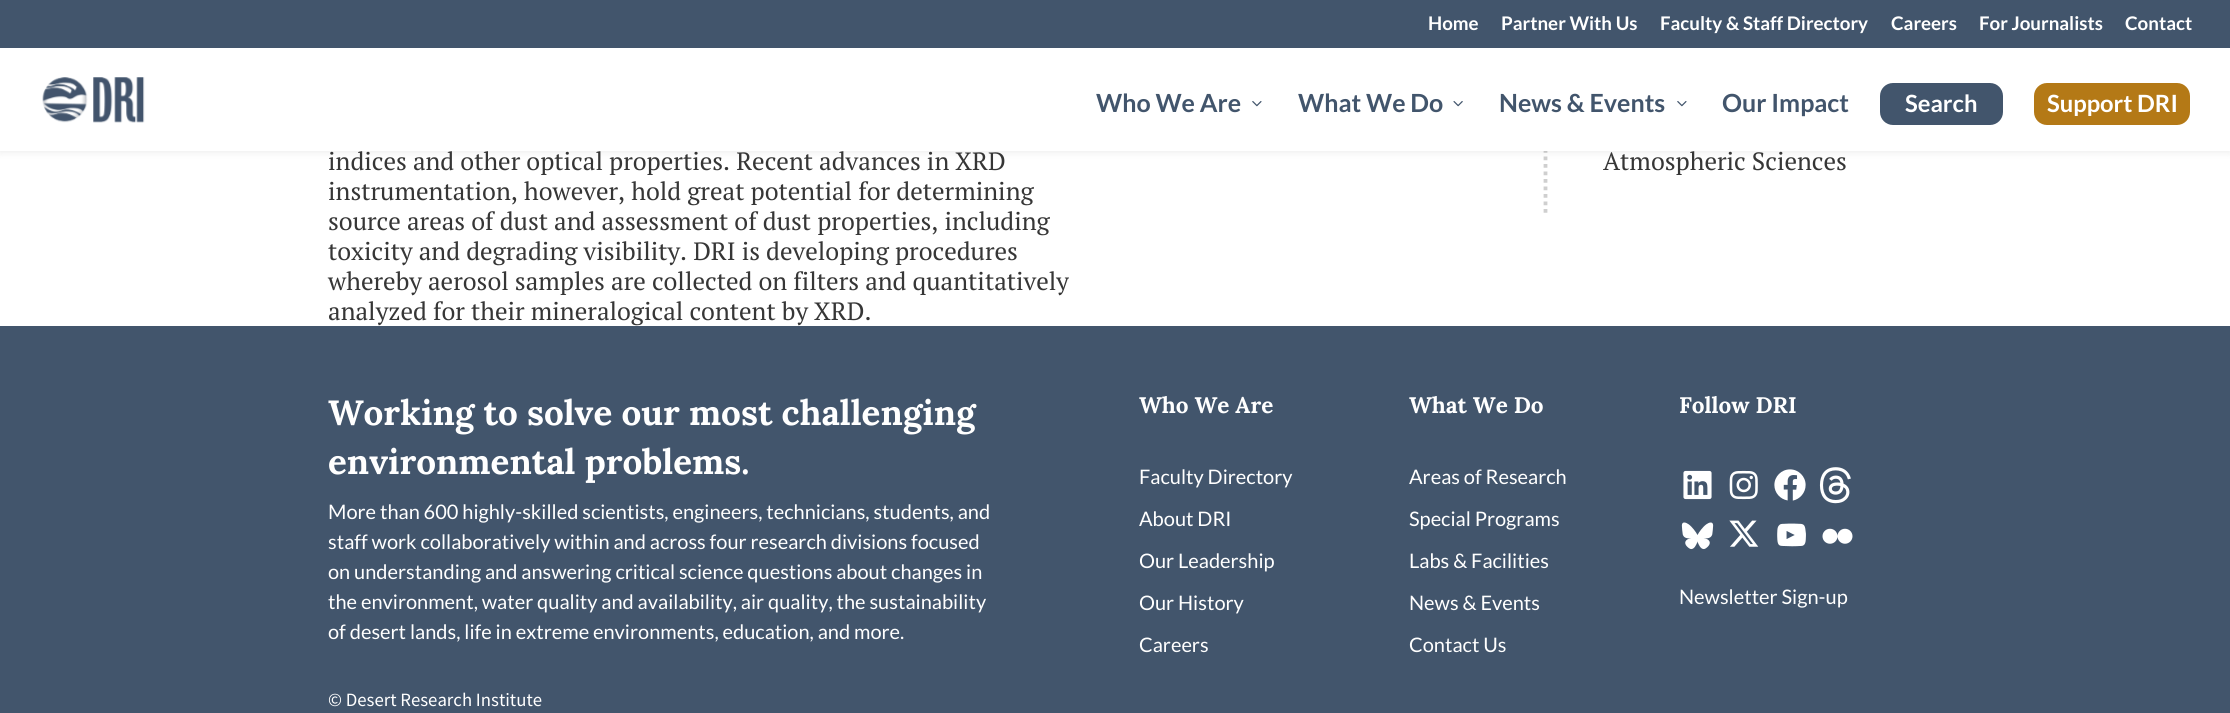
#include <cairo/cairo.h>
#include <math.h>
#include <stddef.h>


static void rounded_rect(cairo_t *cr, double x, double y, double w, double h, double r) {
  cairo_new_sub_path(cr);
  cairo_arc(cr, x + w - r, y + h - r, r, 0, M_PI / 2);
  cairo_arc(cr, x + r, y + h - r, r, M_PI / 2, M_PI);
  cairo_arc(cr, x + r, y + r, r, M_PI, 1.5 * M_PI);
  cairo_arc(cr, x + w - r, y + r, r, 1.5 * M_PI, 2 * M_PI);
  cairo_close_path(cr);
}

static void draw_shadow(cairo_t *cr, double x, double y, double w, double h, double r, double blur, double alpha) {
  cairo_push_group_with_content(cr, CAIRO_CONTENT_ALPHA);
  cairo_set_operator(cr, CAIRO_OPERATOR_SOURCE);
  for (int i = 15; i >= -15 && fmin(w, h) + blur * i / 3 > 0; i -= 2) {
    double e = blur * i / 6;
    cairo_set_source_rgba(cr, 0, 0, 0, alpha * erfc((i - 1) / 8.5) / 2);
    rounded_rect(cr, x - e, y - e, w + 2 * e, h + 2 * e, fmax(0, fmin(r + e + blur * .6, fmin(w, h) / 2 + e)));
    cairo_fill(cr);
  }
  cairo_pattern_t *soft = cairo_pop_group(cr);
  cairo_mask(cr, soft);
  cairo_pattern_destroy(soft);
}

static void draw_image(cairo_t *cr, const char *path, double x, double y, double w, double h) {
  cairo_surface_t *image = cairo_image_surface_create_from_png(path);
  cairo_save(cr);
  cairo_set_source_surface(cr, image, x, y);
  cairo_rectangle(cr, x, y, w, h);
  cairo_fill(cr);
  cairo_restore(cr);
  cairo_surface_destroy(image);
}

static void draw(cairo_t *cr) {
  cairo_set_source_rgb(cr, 1, 1, 1);
  cairo_paint(cr);
  cairo_new_path(cr);
  cairo_move_to(cr, 1545.5, -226);
  cairo_line_to(cr, 1545.5, 214);
  cairo_set_source_rgb(cr, 207 / 255.0, 207 / 255.0, 207 / 255.0);
  cairo_set_line_width(cr, 3.8);
  cairo_set_dash(cr, (double[]){3.75, 3.75}, 2, 0);
  cairo_stroke(cr);
  cairo_set_source_rgb(cr, 0, 0, 0);
  draw_shadow(cr, 0, 48, 2230, 103, 0, 4.5, 0.1);
  cairo_set_source_rgb(cr, 66 / 255.0, 85 / 255.0, 108 / 255.0);
  cairo_rectangle(cr, 0, 0, 2230, 48);
  cairo_fill(cr);
  cairo_set_source_rgb(cr, 1, 1, 1);
  cairo_rectangle(cr, 0, 48, 2230, 103);
  cairo_fill(cr);
  draw_image(cr, "images/1.png", 42, 77, 103, 46);
  draw_image(cr, "images/2.png", 1252, 101, 10, 6);
  draw_image(cr, "images/3.png", 1453, 101, 10, 6);
  draw_image(cr, "images/2.png", 1677, 101, 10, 6);
  cairo_set_source_rgb(cr, 66 / 255.0, 85 / 255.0, 108 / 255.0);
  rounded_rect(cr, 1880, 83, 123, 42, 13);
  cairo_fill(cr);
  cairo_set_source_rgb(cr, 180 / 255.0, 121 / 255.0, 22 / 255.0);
  rounded_rect(cr, 2034, 83, 156, 42, 13);
  cairo_fill(cr);
  cairo_set_source_rgb(cr, 66 / 255.0, 85 / 255.0, 108 / 255.0);
  cairo_rectangle(cr, 0, 326, 2230, 387);
  cairo_fill(cr);
  draw_image(cr, "images/4.png", 1683, 470, 29, 30);
  draw_image(cr, "images/5.png", 1729, 470, 29, 30);
  draw_image(cr, "images/6.png", 1774, 469, 32, 32);
  draw_image(cr, "images/7.png", 1819, 467, 32, 37);
  draw_image(cr, "images/8.png", 1681, 522, 33, 28);
  draw_image(cr, "images/9.png", 1729, 520, 30, 27);
  draw_image(cr, "images/10.png", 1777, 523, 29, 24);
  draw_image(cr, "images/11.png", 1822, 528, 31, 16);
  cairo_select_font_face(cr, "Lato", CAIRO_FONT_SLANT_NORMAL, CAIRO_FONT_WEIGHT_BOLD);
  cairo_set_font_size(cr, 18.75);
  cairo_set_source_rgb(cr, 1, 1, 1);
  cairo_move_to(cr, 1428, 30);
  cairo_show_text(cr, "Home");
  cairo_move_to(cr, 1501, 30);
  cairo_show_text(cr, "Partner With Us");
  cairo_move_to(cr, 1660, 30);
  cairo_show_text(cr, "Faculty & Staff Directory");
  cairo_move_to(cr, 1891, 30);
  cairo_show_text(cr, "Careers");
  cairo_move_to(cr, 1979, 30);
  cairo_show_text(cr, "For Journalists");
  cairo_move_to(cr, 2125, 30);
  cairo_show_text(cr, "Contact");
  cairo_set_font_size(cr, 25);
  cairo_set_source_rgb(cr, 66 / 255.0, 85 / 255.0, 108 / 255.0);
  cairo_move_to(cr, 1096, 112);
  cairo_show_text(cr, "Who We Are");
  cairo_move_to(cr, 1298, 112);
  cairo_show_text(cr, "What We Do");
  cairo_move_to(cr, 1499, 112);
  cairo_show_text(cr, "News & Events");
  cairo_move_to(cr, 1722, 112);
  cairo_show_text(cr, "Our Impact");
  cairo_set_font_size(cr, 23.75);
  cairo_set_source_rgb(cr, 1, 1, 1);
  cairo_move_to(cr, 1905, 112);
  cairo_show_text(cr, "Search");
  cairo_move_to(cr, 2047, 112);
  cairo_show_text(cr, "Support DRI");
  cairo_select_font_face(cr, "PT Serif", CAIRO_FONT_SLANT_NORMAL, CAIRO_FONT_WEIGHT_NORMAL);
  cairo_set_font_size(cr, 25);
  cairo_set_source_rgb(cr, 54 / 255.0, 54 / 255.0, 54 / 255.0);
  cairo_move_to(cr, 328, 170);
  cairo_show_text(cr, "indices and other optical properties. Recent advances in XRD");
  cairo_move_to(cr, 328, 200);
  cairo_show_text(cr, "instrumentation, however, hold great potential for determining");
  cairo_move_to(cr, 328, 230);
  cairo_show_text(cr, "source areas of dust and assessment of dust properties, including");
  cairo_move_to(cr, 328, 260);
  cairo_show_text(cr, "toxicity and degrading visibility. DRI is developing procedures");
  cairo_move_to(cr, 328, 290);
  cairo_show_text(cr, "whereby aerosol samples are collected on filters and quantitatively");
  cairo_move_to(cr, 328, 320);
  cairo_show_text(cr, "analyzed for their mineralogical content by XRD.");
  cairo_move_to(cr, 1603, 170);
  cairo_show_text(cr, "Atmospheric Sciences");
  cairo_select_font_face(cr, "Lora", CAIRO_FONT_SLANT_NORMAL, CAIRO_FONT_WEIGHT_BOLD);
  cairo_set_font_size(cr, 35);
  cairo_set_source_rgb(cr, 1, 1, 1);
  cairo_move_to(cr, 328, 425);
  cairo_show_text(cr, "Working to solve our most challenging");
  cairo_move_to(cr, 328, 474);
  cairo_show_text(cr, "environmental problems.");
  cairo_select_font_face(cr, "Lato", CAIRO_FONT_SLANT_NORMAL, CAIRO_FONT_WEIGHT_NORMAL);
  cairo_set_font_size(cr, 20);
  cairo_move_to(cr, 328, 519);
  cairo_show_text(cr, "More than 600 highly-skilled scientists, engineers, technicians, students, and");
  cairo_move_to(cr, 328, 549);
  cairo_show_text(cr, "staff work collaboratively within and across four research divisions focused");
  cairo_move_to(cr, 328, 579);
  cairo_show_text(cr, "on understanding and answering critical science questions about changes in");
  cairo_move_to(cr, 328, 609);
  cairo_show_text(cr, "the environment, water quality and availability, air quality, the sustainability");
  cairo_move_to(cr, 328, 639);
  cairo_show_text(cr, "of desert lands, life in extreme environments, education, and more.");
  cairo_select_font_face(cr, "Source Sans Pro", CAIRO_FONT_SLANT_NORMAL, CAIRO_FONT_WEIGHT_NORMAL);
  cairo_set_font_size(cr, 18.75);
  cairo_move_to(cr, 328, 706);
  cairo_show_text(cr, "© Desert Research Institute");
  cairo_select_font_face(cr, "Lora", CAIRO_FONT_SLANT_NORMAL, CAIRO_FONT_WEIGHT_BOLD);
  cairo_set_font_size(cr, 22.5);
  cairo_move_to(cr, 1139, 413);
  cairo_show_text(cr, "Who We Are");
  cairo_select_font_face(cr, "Lato", CAIRO_FONT_SLANT_NORMAL, CAIRO_FONT_WEIGHT_NORMAL);
  cairo_set_font_size(cr, 20);
  cairo_move_to(cr, 1139, 484);
  cairo_show_text(cr, "Faculty Directory");
  cairo_move_to(cr, 1139, 526);
  cairo_show_text(cr, "About DRI");
  cairo_move_to(cr, 1139, 568);
  cairo_show_text(cr, "Our Leadership");
  cairo_move_to(cr, 1139, 610);
  cairo_show_text(cr, "Our History");
  cairo_move_to(cr, 1139, 652);
  cairo_show_text(cr, "Careers");
  cairo_select_font_face(cr, "Lora", CAIRO_FONT_SLANT_NORMAL, CAIRO_FONT_WEIGHT_BOLD);
  cairo_set_font_size(cr, 22.5);
  cairo_move_to(cr, 1409, 413);
  cairo_show_text(cr, "What We Do");
  cairo_select_font_face(cr, "Lato", CAIRO_FONT_SLANT_NORMAL, CAIRO_FONT_WEIGHT_NORMAL);
  cairo_set_font_size(cr, 20);
  cairo_move_to(cr, 1409, 484);
  cairo_show_text(cr, "Areas of Research");
  cairo_move_to(cr, 1409, 526);
  cairo_show_text(cr, "Special Programs");
  cairo_move_to(cr, 1409, 568);
  cairo_show_text(cr, "Labs & Facilities");
  cairo_move_to(cr, 1409, 610);
  cairo_show_text(cr, "News & Events");
  cairo_move_to(cr, 1409, 652);
  cairo_show_text(cr, "Contact Us");
  cairo_select_font_face(cr, "Lora", CAIRO_FONT_SLANT_NORMAL, CAIRO_FONT_WEIGHT_BOLD);
  cairo_set_font_size(cr, 22.5);
  cairo_move_to(cr, 1679, 413);
  cairo_show_text(cr, "Follow DRI");
  cairo_select_font_face(cr, "Lato", CAIRO_FONT_SLANT_NORMAL, CAIRO_FONT_WEIGHT_NORMAL);
  cairo_set_font_size(cr, 20);
  cairo_move_to(cr, 1679, 604);
  cairo_show_text(cr, "Newsletter Sign-up");
}

int main(void) {
  cairo_surface_t *surface = cairo_image_surface_create(CAIRO_FORMAT_RGB24, 2230, 713);
  cairo_t *cr = cairo_create(surface);
  cairo_font_options_t *options = cairo_font_options_create();
  cairo_font_options_set_hint_metrics(options, CAIRO_HINT_METRICS_OFF);
  cairo_font_options_set_hint_style(options, CAIRO_HINT_STYLE_NONE);
  cairo_set_font_options(cr, options);
  cairo_set_miter_limit(cr, 4);
  draw(cr);
  cairo_surface_write_to_png(surface, "out.png");
  cairo_font_options_destroy(options);
  cairo_destroy(cr);
  cairo_surface_destroy(surface);
  return 0;
}
